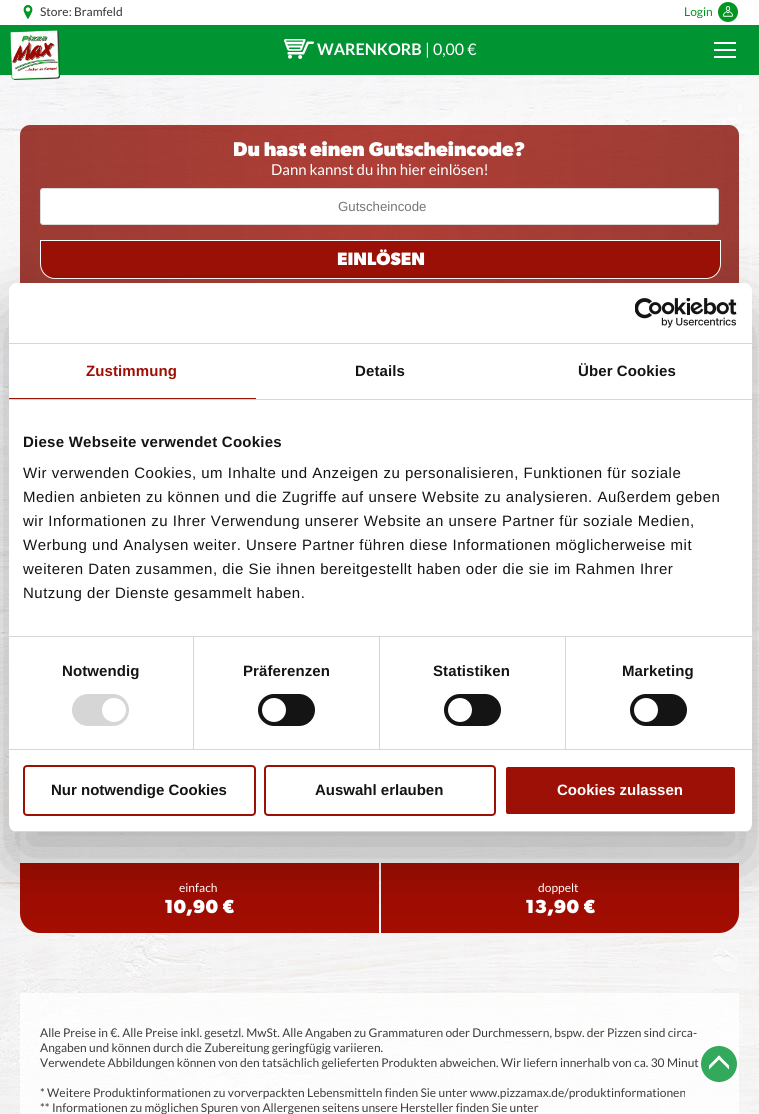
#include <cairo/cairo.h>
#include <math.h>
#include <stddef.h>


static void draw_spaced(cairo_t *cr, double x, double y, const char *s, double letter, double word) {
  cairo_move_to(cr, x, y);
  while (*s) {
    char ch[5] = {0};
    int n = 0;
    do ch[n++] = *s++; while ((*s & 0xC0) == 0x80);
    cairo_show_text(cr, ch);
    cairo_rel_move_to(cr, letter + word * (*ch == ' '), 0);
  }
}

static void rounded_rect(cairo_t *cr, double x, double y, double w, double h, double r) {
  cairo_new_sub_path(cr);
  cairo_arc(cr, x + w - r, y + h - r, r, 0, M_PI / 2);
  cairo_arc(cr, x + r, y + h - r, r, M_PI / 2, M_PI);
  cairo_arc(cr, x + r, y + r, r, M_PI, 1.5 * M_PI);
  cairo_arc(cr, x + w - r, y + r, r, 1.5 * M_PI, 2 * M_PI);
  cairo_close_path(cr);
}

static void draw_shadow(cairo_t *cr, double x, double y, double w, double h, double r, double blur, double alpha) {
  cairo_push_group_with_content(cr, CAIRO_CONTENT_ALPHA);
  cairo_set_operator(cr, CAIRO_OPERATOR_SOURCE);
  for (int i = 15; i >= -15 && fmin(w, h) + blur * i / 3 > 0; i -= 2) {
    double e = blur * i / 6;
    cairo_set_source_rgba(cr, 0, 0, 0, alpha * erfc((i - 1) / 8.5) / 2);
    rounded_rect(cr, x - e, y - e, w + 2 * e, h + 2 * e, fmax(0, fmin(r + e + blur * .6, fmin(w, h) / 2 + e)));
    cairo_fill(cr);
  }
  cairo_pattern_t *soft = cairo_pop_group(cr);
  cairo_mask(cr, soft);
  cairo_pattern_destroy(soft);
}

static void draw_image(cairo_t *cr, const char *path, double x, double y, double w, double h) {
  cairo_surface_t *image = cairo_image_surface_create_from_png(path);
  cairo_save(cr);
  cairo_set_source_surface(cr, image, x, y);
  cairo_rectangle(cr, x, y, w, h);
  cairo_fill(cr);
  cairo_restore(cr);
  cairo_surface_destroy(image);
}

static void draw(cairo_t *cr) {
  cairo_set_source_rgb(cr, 1, 1, 1);
  cairo_paint(cr);
  draw_image(cr, "images/1.png", 0, 75, 759, 1039);
  cairo_set_source_rgb(cr, 0, 148 / 255.0, 50 / 255.0);
  cairo_rectangle(cr, 0, 25, 759, 50);
  cairo_fill(cr);
  draw_image(cr, "images/2.png", 23, 5, 10, 14);
  cairo_set_source_rgb(cr, 0, 150 / 255.0, 33 / 255.0);
  cairo_arc(cr, 728, 12, 10, 0, 2 * M_PI);
  cairo_fill(cr);
  draw_image(cr, "images/3.png", 722, 6, 12, 11);
  draw_image(cr, "images/4.png", 10, 30, 50, 50);
  draw_image(cr, "images/5.png", 284, 39, 30, 20);
  cairo_set_source_rgb(cr, 1, 1, 1);
  cairo_rectangle(cr, 714, 42, 22, 2);
  cairo_fill(cr);
  cairo_rectangle(cr, 714, 49, 22, 2);
  cairo_fill(cr);
  cairo_rectangle(cr, 714, 56, 22, 2);
  cairo_fill(cr);
  rounded_rect(cr, 40.5, 188.5, 678, 36, 2.5);
  cairo_fill_preserve(cr);
  cairo_set_source_rgb(cr, 219 / 255.0, 219 / 255.0, 219 / 255.0);
  cairo_set_line_width(cr, 1);
  cairo_stroke(cr);
  cairo_set_source_rgb(cr, 156 / 255.0, 16 / 255.0, 6 / 255.0);
  cairo_new_path(cr);
  cairo_move_to(cr, 40.5, 240.5);
  cairo_line_to(cr, 720.5, 240.5);
  cairo_line_to(cr, 720.5, 264);
  cairo_curve_to(cr, 720.5, 272, 714, 278.5, 706, 278.5);
  cairo_line_to(cr, 55, 278.5);
  cairo_curve_to(cr, 47, 278.5, 40.5, 272, 40.5, 264);
  cairo_close_path(cr);
  cairo_fill_preserve(cr);
  cairo_set_source_rgb(cr, 1, 1, 1);
  cairo_stroke(cr);
  cairo_set_source_rgba(cr, 1, 1, 1, 0.6);
  cairo_new_path(cr);
  cairo_move_to(cr, 20, 696);
  cairo_line_to(cr, 739, 696);
  cairo_line_to(cr, 739, 913);
  cairo_curve_to(cr, 739, 924, 730, 933, 719, 933);
  cairo_line_to(cr, 40, 933);
  cairo_curve_to(cr, 29, 933, 20, 924, 20, 913);
  cairo_close_path(cr);
  cairo_fill(cr);
  cairo_set_source_rgb(cr, 164 / 255.0, 13 / 255.0, 2 / 255.0);
  cairo_new_path(cr);
  cairo_move_to(cr, 20, 863);
  cairo_line_to(cr, 379, 863);
  cairo_line_to(cr, 379, 933);
  cairo_line_to(cr, 40, 933);
  cairo_curve_to(cr, 29, 933, 20, 924, 20, 913);
  cairo_close_path(cr);
  cairo_fill(cr);
  cairo_new_path(cr);
  cairo_move_to(cr, 381, 863);
  cairo_line_to(cr, 739, 863);
  cairo_line_to(cr, 739, 913);
  cairo_curve_to(cr, 739, 924, 730, 933, 719, 933);
  cairo_line_to(cr, 381, 933);
  cairo_close_path(cr);
  cairo_fill(cr);
  cairo_set_source_rgba(cr, 1, 1, 1, 0.8);
  cairo_rectangle(cr, 20, 993, 719, 121);
  cairo_fill(cr);
  cairo_set_source_rgba(cr, 0, 148 / 255.0, 50 / 255.0, 0.8);
  cairo_arc(cr, 719, 1064, 19, 0, 2 * M_PI);
  cairo_fill_preserve(cr);
  cairo_set_source_rgb(cr, 1, 1, 1);
  cairo_set_line_width(cr, 2);
  cairo_stroke(cr);
  cairo_save(cr);
  cairo_rectangle(cr, 709, 1046, 20, 36);
  cairo_clip(cr);
  cairo_new_path(cr);
  cairo_move_to(cr, 708.5, 1070);
  cairo_line_to(cr, 706.5, 1068);
  cairo_line_to(cr, 719, 1055.5);
  cairo_line_to(cr, 721, 1057.5);
  cairo_close_path(cr);
  cairo_fill(cr);
  cairo_new_path(cr);
  cairo_move_to(cr, 729.5, 1070);
  cairo_line_to(cr, 717, 1057.5);
  cairo_line_to(cr, 719, 1055.5);
  cairo_line_to(cr, 731.5, 1068);
  cairo_close_path(cr);
  cairo_fill(cr);
  cairo_restore(cr);
  cairo_set_source_rgb(cr, 0, 0, 0);
  draw_shadow(cr, 9, 315, 743, 549, 8, 34, 0.3);
  cairo_set_source_rgb(cr, 1, 1, 1);
  rounded_rect(cr, 9, 283, 743, 549, 8);
  cairo_fill(cr);
  cairo_set_source_rgb(cr, 214 / 255.0, 214 / 255.0, 214 / 255.0);
  cairo_rectangle(cr, 9, 343, 743, 1);
  cairo_fill(cr);
  draw_image(cr, "images/6.png", 635, 298, 102, 30);
  cairo_rectangle(cr, 9, 399, 743, 1);
  cairo_fill(cr);
  cairo_set_source_rgb(cr, 157 / 255.0, 16 / 255.0, 6 / 255.0);
  cairo_rectangle(cr, 9, 398, 247, 1);
  cairo_fill(cr);
  cairo_set_source_rgb(cr, 214 / 255.0, 214 / 255.0, 214 / 255.0);
  cairo_rectangle(cr, 9, 636, 743, 1);
  cairo_fill(cr);
  cairo_rectangle(cr, 9, 749, 743, 1);
  cairo_fill(cr);
  cairo_rectangle(cr, 193, 637, 1, 112);
  cairo_fill(cr);
  rounded_rect(cr, 72, 694, 57, 32, 16);
  cairo_fill(cr);
  cairo_set_source_rgb(cr, 1, 1, 1);
  cairo_arc(cr, 114, 710, 12, 0, 2 * M_PI);
  cairo_fill(cr);
  cairo_set_source_rgb(cr, 214 / 255.0, 214 / 255.0, 214 / 255.0);
  cairo_rectangle(cr, 379, 637, 1, 112);
  cairo_fill(cr);
  cairo_set_source_rgb(cr, 20 / 255.0, 20 / 255.0, 20 / 255.0);
  rounded_rect(cr, 258, 694, 57, 32, 16);
  cairo_fill(cr);
  cairo_set_source_rgb(cr, 1, 1, 1);
  cairo_arc(cr, 274, 710, 12, 0, 2 * M_PI);
  cairo_fill(cr);
  cairo_set_source_rgb(cr, 214 / 255.0, 214 / 255.0, 214 / 255.0);
  cairo_rectangle(cr, 565, 637, 1, 112);
  cairo_fill(cr);
  cairo_set_source_rgb(cr, 20 / 255.0, 20 / 255.0, 20 / 255.0);
  rounded_rect(cr, 444, 694, 57, 32, 16);
  cairo_fill(cr);
  cairo_set_source_rgb(cr, 1, 1, 1);
  cairo_arc(cr, 460, 710, 12, 0, 2 * M_PI);
  cairo_fill(cr);
  cairo_set_source_rgb(cr, 20 / 255.0, 20 / 255.0, 20 / 255.0);
  rounded_rect(cr, 630, 694, 57, 32, 16);
  cairo_fill(cr);
  cairo_set_source_rgb(cr, 1, 1, 1);
  cairo_arc(cr, 646, 710, 12, 0, 2 * M_PI);
  cairo_fill(cr);
  cairo_save(cr);
  rounded_rect(cr, 9, 283, 743, 549, 8);
  cairo_clip(cr);
  cairo_set_source_rgb(cr, 214 / 255.0, 214 / 255.0, 214 / 255.0);
  cairo_rectangle(cr, 9, 831, 743, 1);
  cairo_fill(cr);
  cairo_restore(cr);
  rounded_rect(cr, 24, 766, 231, 49, 3);
  cairo_set_source_rgb(cr, 157 / 255.0, 16 / 255.0, 6 / 255.0);
  cairo_stroke(cr);
  rounded_rect(cr, 265, 766, 230, 49, 3);
  cairo_stroke(cr);
  rounded_rect(cr, 505, 766, 231, 49, 3);
  cairo_fill_preserve(cr);
  cairo_set_source_rgb(cr, 1, 1, 1);
  cairo_stroke(cr);
  cairo_select_font_face(cr, "Lato", CAIRO_FONT_SLANT_NORMAL, CAIRO_FONT_WEIGHT_NORMAL);
  cairo_set_font_size(cr, 12);
  cairo_set_source_rgb(cr, 51 / 255.0, 51 / 255.0, 51 / 255.0);
  cairo_move_to(cr, 40, 16);
  cairo_show_text(cr, "Store: Bramfeld");
  cairo_set_source_rgb(cr, 0, 150 / 255.0, 33 / 255.0);
  cairo_move_to(cr, 684, 16);
  cairo_show_text(cr, "Login");
  cairo_select_font_face(cr, "Lato", CAIRO_FONT_SLANT_NORMAL, CAIRO_FONT_WEIGHT_BOLD);
  cairo_set_font_size(cr, 16);
  cairo_set_source_rgb(cr, 1, 1, 1);
  cairo_move_to(cr, 317, 55);
  cairo_show_text(cr, "WARENKORB");
  cairo_select_font_face(cr, "Lato", CAIRO_FONT_SLANT_NORMAL, CAIRO_FONT_WEIGHT_NORMAL);
  cairo_move_to(cr, 425, 55);
  cairo_show_text(cr, "| 0,00 €");
  cairo_select_font_face(cr, "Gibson", CAIRO_FONT_SLANT_NORMAL, CAIRO_FONT_WEIGHT_BOLD);
  cairo_set_font_size(cr, 20);
  cairo_move_to(cr, 233, 156);
  cairo_show_text(cr, "Du hast einen Gutscheincode?");
  cairo_select_font_face(cr, "Lato", CAIRO_FONT_SLANT_NORMAL, CAIRO_FONT_WEIGHT_NORMAL);
  cairo_set_font_size(cr, 15);
  cairo_move_to(cr, 271, 175);
  cairo_show_text(cr, "Dann kannst du ihn hier einlösen!");
  cairo_select_font_face(cr, "Liberation Sans", CAIRO_FONT_SLANT_NORMAL, CAIRO_FONT_WEIGHT_NORMAL);
  cairo_set_font_size(cr, 13.25);
  cairo_set_source_rgb(cr, 117 / 255.0, 117 / 255.0, 117 / 255.0);
  cairo_move_to(cr, 338, 211);
  cairo_show_text(cr, "Gutscheincode");
  cairo_select_font_face(cr, "Gibson", CAIRO_FONT_SLANT_NORMAL, CAIRO_FONT_WEIGHT_BOLD);
  cairo_set_font_size(cr, 18);
  cairo_set_source_rgb(cr, 1, 1, 1);
  cairo_move_to(cr, 337, 265);
  cairo_show_text(cr, "EINLÖSEN");
  cairo_select_font_face(cr, "Lato", CAIRO_FONT_SLANT_NORMAL, CAIRO_FONT_WEIGHT_NORMAL);
  cairo_set_font_size(cr, 12);
  cairo_move_to(cr, 179, 892);
  cairo_show_text(cr, "einfach");
  cairo_select_font_face(cr, "Gibson", CAIRO_FONT_SLANT_NORMAL, CAIRO_FONT_WEIGHT_BOLD);
  cairo_set_font_size(cr, 19);
  cairo_move_to(cr, 164, 913);
  cairo_show_text(cr, "10,90 €");
  cairo_select_font_face(cr, "Lato", CAIRO_FONT_SLANT_NORMAL, CAIRO_FONT_WEIGHT_NORMAL);
  cairo_set_font_size(cr, 12);
  cairo_move_to(cr, 538, 892);
  cairo_show_text(cr, "doppelt");
  cairo_select_font_face(cr, "Gibson", CAIRO_FONT_SLANT_NORMAL, CAIRO_FONT_WEIGHT_BOLD);
  cairo_set_font_size(cr, 19);
  cairo_move_to(cr, 525, 913);
  cairo_show_text(cr, "13,90 €");
  cairo_select_font_face(cr, "Lato", CAIRO_FONT_SLANT_NORMAL, CAIRO_FONT_WEIGHT_NORMAL);
  cairo_set_font_size(cr, 12);
  cairo_set_source_rgb(cr, 60 / 255.0, 60 / 255.0, 59 / 255.0);
  cairo_move_to(cr, 40, 1037);
  cairo_show_text(cr, "Alle Preise in €. Alle Preise inkl. gesetzl. MwSt. Alle Angaben zu Grammaturen oder Durchmessern, bspw. der Pizzen sind circa-");
  cairo_move_to(cr, 40, 1052);
  cairo_show_text(cr, "Angaben und können durch die Zubereitung geringfügig variieren.");
  cairo_move_to(cr, 40, 1067);
  cairo_show_text(cr, "Verwendete Abbildungen können von den tatsächlich gelieferten Produkten abweichen. Wir liefern innerhalb von ca. 30 Minut");
  cairo_move_to(cr, 40, 1097);
  cairo_show_text(cr, "* Weitere Produktinformationen zu vorverpackten Lebensmitteln finden Sie unter www.pizzamax.de/produktinformationen");
  cairo_move_to(cr, 40, 1112);
  cairo_show_text(cr, "** Informationen zu möglichen Spuren von Allergenen seitens unsere Hersteller finden Sie unter");
  cairo_select_font_face(cr, "Liberation Sans", CAIRO_FONT_SLANT_NORMAL, CAIRO_FONT_WEIGHT_BOLD);
  cairo_set_font_size(cr, 15);
  cairo_set_source_rgb(cr, 157 / 255.0, 16 / 255.0, 6 / 255.0);
  draw_spaced(cr, 86, 376, "Zustimmung", 0.1, 0);
  cairo_set_source_rgb(cr, 20 / 255.0, 20 / 255.0, 20 / 255.0);
  draw_spaced(cr, 355, 376, "Details", 0.1, 0);
  draw_spaced(cr, 578, 376, "Über Cookies", 0.1, 0);
  draw_spaced(cr, 23, 447, "Diese Webseite verwendet Cookies", 0.25, 0);
  cairo_select_font_face(cr, "Liberation Sans", CAIRO_FONT_SLANT_NORMAL, CAIRO_FONT_WEIGHT_NORMAL);
  draw_spaced(cr, 23, 478, "Wir verwenden Cookies, um Inhalte und Anzeigen zu personalisieren, Funktionen für soziale", 0.5, 0);
  draw_spaced(cr, 23, 502, "Medien anbieten zu können und die Zugriffe auf unsere Website zu analysieren. Außerdem geben", 0.5, 0);
  draw_spaced(cr, 23, 526, "wir Informationen zu Ihrer Verwendung unserer Website an unsere Partner für soziale Medien,", 0.5, 0);
  draw_spaced(cr, 23, 550, "Werbung und Analysen weiter. Unsere Partner führen diese Informationen möglicherweise mit", 0.5, 0);
  draw_spaced(cr, 23, 574, "weiteren Daten zusammen, die Sie ihnen bereitgestellt haben oder die sie im Rahmen Ihrer", 0.5, 0);
  draw_spaced(cr, 23, 598, "Nutzung der Dienste gesammelt haben.", 0.5, 0);
  cairo_select_font_face(cr, "Liberation Sans", CAIRO_FONT_SLANT_NORMAL, CAIRO_FONT_WEIGHT_BOLD);
  draw_spaced(cr, 62, 676, "Notwendig", 0.1, 0);
  draw_spaced(cr, 243, 676, "Präferenzen", 0.1, 0);
  draw_spaced(cr, 433, 676, "Statistiken", 0.1, 0);
  draw_spaced(cr, 622, 676, "Marketing", 0.1, 0);
  cairo_move_to(cr, 51, 795);
  cairo_show_text(cr, "Nur notwendige Cookies");
  cairo_move_to(cr, 315, 795);
  cairo_show_text(cr, "Auswahl erlauben");
  cairo_set_source_rgb(cr, 1, 1, 1);
  cairo_move_to(cr, 557, 795);
  cairo_show_text(cr, "Cookies zulassen");
}

int main(void) {
  cairo_surface_t *surface = cairo_image_surface_create(CAIRO_FORMAT_RGB24, 759, 1114);
  cairo_t *cr = cairo_create(surface);
  cairo_font_options_t *options = cairo_font_options_create();
  cairo_font_options_set_hint_metrics(options, CAIRO_HINT_METRICS_OFF);
  cairo_font_options_set_hint_style(options, CAIRO_HINT_STYLE_NONE);
  cairo_set_font_options(cr, options);
  cairo_set_miter_limit(cr, 4);
  draw(cr);
  cairo_surface_write_to_png(surface, "out.png");
  cairo_font_options_destroy(options);
  cairo_destroy(cr);
  cairo_surface_destroy(surface);
  return 0;
}
